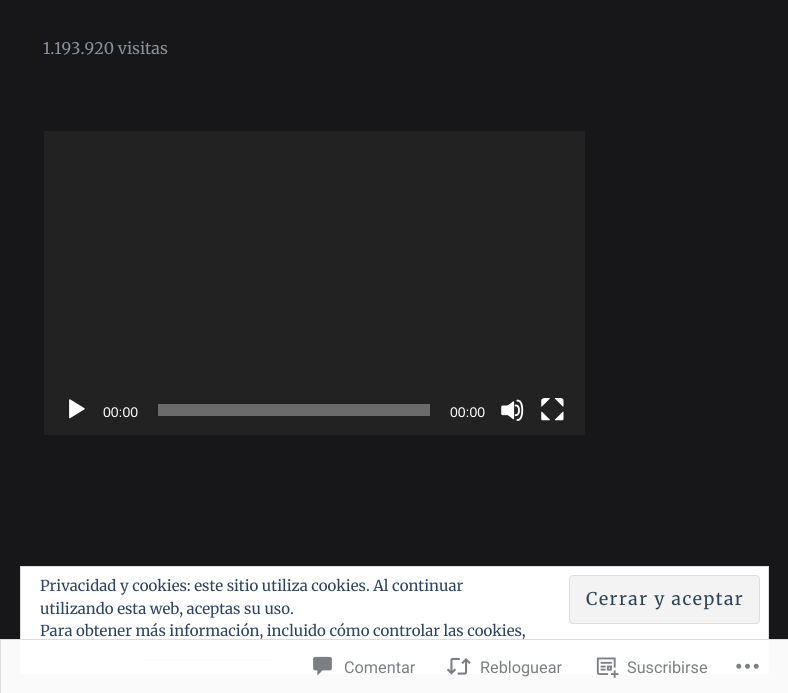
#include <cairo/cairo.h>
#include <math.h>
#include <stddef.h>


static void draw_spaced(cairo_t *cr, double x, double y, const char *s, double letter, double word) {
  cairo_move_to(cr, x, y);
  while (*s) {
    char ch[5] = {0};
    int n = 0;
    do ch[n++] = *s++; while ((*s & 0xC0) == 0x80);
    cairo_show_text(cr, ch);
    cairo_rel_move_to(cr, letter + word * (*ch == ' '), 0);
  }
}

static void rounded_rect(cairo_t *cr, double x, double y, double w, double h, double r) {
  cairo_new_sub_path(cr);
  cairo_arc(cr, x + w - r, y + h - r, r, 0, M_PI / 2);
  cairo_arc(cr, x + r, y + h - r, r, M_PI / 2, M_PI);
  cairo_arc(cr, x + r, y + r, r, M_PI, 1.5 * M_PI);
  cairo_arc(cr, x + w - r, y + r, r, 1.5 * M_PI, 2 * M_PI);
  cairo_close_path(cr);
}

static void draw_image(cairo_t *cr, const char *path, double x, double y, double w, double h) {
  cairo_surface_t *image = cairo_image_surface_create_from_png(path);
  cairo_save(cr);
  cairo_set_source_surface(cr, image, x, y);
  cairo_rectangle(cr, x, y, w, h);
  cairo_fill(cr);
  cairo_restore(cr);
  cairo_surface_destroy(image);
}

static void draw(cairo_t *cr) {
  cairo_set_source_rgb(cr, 23 / 255.0, 23 / 255.0, 25 / 255.0);
  cairo_paint(cr);
  cairo_set_source_rgb(cr, 34 / 255.0, 34 / 255.0, 34 / 255.0);
  cairo_rectangle(cr, 44, 131, 541, 304);
  cairo_fill(cr);
  draw_image(cr, "images/1.png", 69, 399, 16, 20);
  cairo_set_source_rgb(cr, 107 / 255.0, 107 / 255.0, 107 / 255.0);
  cairo_rectangle(cr, 158, 404, 272, 12);
  cairo_fill(cr);
  draw_image(cr, "images/2.png", 501, 399, 23, 22);
  draw_image(cr, "images/3.png", 541, 398, 23, 23);
  cairo_set_source_rgb(cr, 1, 1, 1);
  cairo_rectangle(cr, 20.5, 566.5, 748, 107);
  cairo_fill_preserve(cr);
  cairo_set_source_rgb(cr, 222 / 255.0, 222 / 255.0, 222 / 255.0);
  cairo_set_line_width(cr, 1);
  cairo_stroke(cr);
  cairo_set_source_rgb(cr, 243 / 255.0, 243 / 255.0, 243 / 255.0);
  rounded_rect(cr, 569.5, 575.5, 190, 48, 3.5);
  cairo_fill_preserve(cr);
  cairo_set_source_rgb(cr, 222 / 255.0, 222 / 255.0, 222 / 255.0);
  cairo_stroke(cr);
  cairo_set_source_rgb(cr, 46 / 255.0, 68 / 255.0, 103 / 255.0);
  cairo_rectangle(cr, 144, 660, 132, 1);
  cairo_fill(cr);
  cairo_select_font_face(cr, "Merriweather", CAIRO_FONT_SLANT_NORMAL, CAIRO_FONT_WEIGHT_NORMAL);
  cairo_set_font_size(cr, 16);
  cairo_set_source_rgb(cr, 132 / 255.0, 147 / 255.0, 158 / 255.0);
  cairo_move_to(cr, 43, 54);
  cairo_show_text(cr, "1.193.920 visitas");
  cairo_select_font_face(cr, "Liberation Sans", CAIRO_FONT_SLANT_NORMAL, CAIRO_FONT_WEIGHT_NORMAL);
  cairo_set_font_size(cr, 14);
  cairo_set_source_rgb(cr, 1, 1, 1);
  cairo_move_to(cr, 103, 417);
  cairo_show_text(cr, "00:00");
  cairo_move_to(cr, 450, 417);
  cairo_show_text(cr, "00:00");
  cairo_select_font_face(cr, "Merriweather", CAIRO_FONT_SLANT_NORMAL, CAIRO_FONT_WEIGHT_NORMAL);
  cairo_set_font_size(cr, 15);
  cairo_set_source_rgb(cr, 46 / 255.0, 68 / 255.0, 103 / 255.0);
  cairo_move_to(cr, 40, 591);
  cairo_show_text(cr, "Privacidad y cookies: este sitio utiliza cookies. Al continuar");
  cairo_move_to(cr, 40, 614);
  cairo_show_text(cr, "utilizando esta web, aceptas su uso.");
  cairo_set_font_size(cr, 17.5);
  cairo_set_source_rgb(cr, 46 / 255.0, 68 / 255.0, 83 / 255.0);
  draw_spaced(cr, 586, 605, "Cerrar y aceptar", 1.5, 0);
  cairo_set_font_size(cr, 15);
  cairo_set_source_rgb(cr, 46 / 255.0, 68 / 255.0, 103 / 255.0);
  cairo_move_to(cr, 40, 636);
  cairo_show_text(cr, "Para obtener más información, incluido cómo controlar las cookies,");
  cairo_set_source_rgba(cr, 1, 1, 1, 0.98);
  cairo_rectangle(cr, 0, 639, 788, 54);
  cairo_fill(cr);
  cairo_rectangle(cr, 0.5, 639.5, 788, 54);
  cairo_set_source_rgba(cr, 220 / 255.0, 220 / 255.0, 222 / 255.0, 0.98);
  cairo_stroke(cr);
  draw_image(cr, "images/4.png", 313, 656, 19, 20);
  cairo_select_font_face(cr, "Roboto", CAIRO_FONT_SLANT_NORMAL, CAIRO_FONT_WEIGHT_NORMAL);
  cairo_set_font_size(cr, 16.25);
  cairo_set_source_rgb(cr, 123 / 255.0, 127 / 255.0, 132 / 255.0);
  cairo_move_to(cr, 344, 673);
  cairo_show_text(cr, "Comentar");
  draw_image(cr, "images/5.png", 446, 657, 25, 18);
  cairo_move_to(cr, 480, 673);
  cairo_show_text(cr, "Rebloguear");
  draw_image(cr, "images/6.png", 596, 657, 23, 21);
  cairo_move_to(cr, 627, 673);
  cairo_show_text(cr, "Suscribirse");
  draw_image(cr, "images/7.png", 736, 663, 23, 6);
}

int main(void) {
  cairo_surface_t *surface = cairo_image_surface_create(CAIRO_FORMAT_RGB24, 788, 693);
  cairo_t *cr = cairo_create(surface);
  cairo_font_options_t *options = cairo_font_options_create();
  cairo_font_options_set_hint_metrics(options, CAIRO_HINT_METRICS_OFF);
  cairo_font_options_set_hint_style(options, CAIRO_HINT_STYLE_NONE);
  cairo_set_font_options(cr, options);
  cairo_set_miter_limit(cr, 4);
  draw(cr);
  cairo_surface_write_to_png(surface, "out.png");
  cairo_font_options_destroy(options);
  cairo_destroy(cr);
  cairo_surface_destroy(surface);
  return 0;
}
